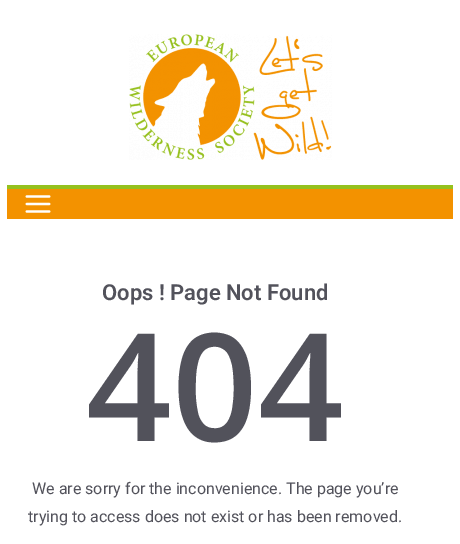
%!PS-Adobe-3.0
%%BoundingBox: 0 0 460 544
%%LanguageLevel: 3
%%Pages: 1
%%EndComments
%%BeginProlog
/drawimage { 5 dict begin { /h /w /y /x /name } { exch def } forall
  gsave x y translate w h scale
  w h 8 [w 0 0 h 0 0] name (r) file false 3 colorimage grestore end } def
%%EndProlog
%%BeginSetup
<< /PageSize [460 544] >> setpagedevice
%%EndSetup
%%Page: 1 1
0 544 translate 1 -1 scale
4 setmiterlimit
1 setgray
0 0 460 544 rectfill
(images/1.raw) 129 34 203 126 drawimage
0.953 0.573 0 setrgbcolor
7 189 446 30 rectfill
0.584 0.757 0.118 setrgbcolor
7 185 446 4 rectfill
(images/2.raw) 25 195 26 18 drawimage
/Roboto-SemiBold [22 0 0 -22 0 0] selectfont
0.322 0.322 0.357 setrgbcolor
102 300 moveto (Oops ! Page Not Found) show
/OpenSans-SemiBold [150 0 0 -150 0 0] selectfont
86 441 moveto (404) show
/Roboto-Regular [16 0 0 -16 0 0] selectfont
32 494 moveto (We are sorry for the inconvenience. The page you’re) show
28 522 moveto (trying to access does not exist or has been removed.) show
showpage
%%EOF
